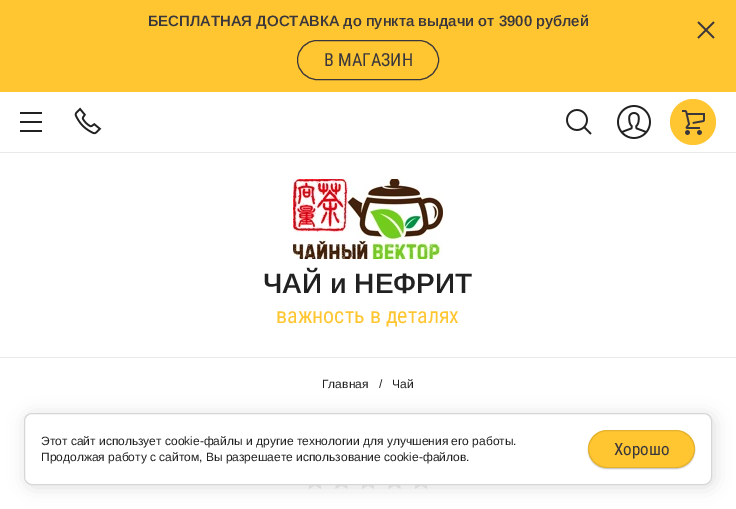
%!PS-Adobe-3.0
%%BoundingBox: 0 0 736 509
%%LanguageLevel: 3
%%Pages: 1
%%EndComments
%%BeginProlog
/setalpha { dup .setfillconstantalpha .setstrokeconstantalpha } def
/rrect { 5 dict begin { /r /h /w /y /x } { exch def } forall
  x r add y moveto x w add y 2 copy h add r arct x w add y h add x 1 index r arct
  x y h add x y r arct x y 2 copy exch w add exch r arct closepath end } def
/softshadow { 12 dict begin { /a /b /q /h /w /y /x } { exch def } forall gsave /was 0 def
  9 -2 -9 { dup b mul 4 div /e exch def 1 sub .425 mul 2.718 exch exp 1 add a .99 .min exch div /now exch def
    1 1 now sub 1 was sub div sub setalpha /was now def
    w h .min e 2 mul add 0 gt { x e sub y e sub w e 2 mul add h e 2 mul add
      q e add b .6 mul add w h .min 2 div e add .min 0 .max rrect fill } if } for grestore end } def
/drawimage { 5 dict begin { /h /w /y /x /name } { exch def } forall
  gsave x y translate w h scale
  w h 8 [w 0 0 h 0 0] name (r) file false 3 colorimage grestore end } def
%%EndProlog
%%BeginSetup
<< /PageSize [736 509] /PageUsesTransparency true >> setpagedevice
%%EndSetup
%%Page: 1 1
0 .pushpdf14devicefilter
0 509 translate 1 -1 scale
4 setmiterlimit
1 setgray
0 0 736 509 rectfill
1 0.776 0.196 setrgbcolor
0 0 736 92 rectfill
(images/1.raw) 697 21 18 18 drawimage
0.224 0.212 0.235 setrgbcolor
297.5 40.5 141 39 19.5 rrect stroke
0.914 setgray
0 152 736 1 rectfill
(images/2.raw) 20 112 22 20 drawimage
(images/3.raw) 74 107 28 28 drawimage
(images/4.raw) 566 109 26 26 drawimage
(images/5.raw) 617 105 34 34 drawimage
1 0.776 0.196 setrgbcolor
newpath 693 122 23 0 360 arc closepath fill
(images/6.raw) 682 110 23 25 drawimage
(images/7.raw) 293 179 150 80 drawimage
0.914 setgray
0 357 736 1 rectfill
(images/8.raw) 308 485 120 4 drawimage
0 setgray
26 415 688 72 8 9 0.14 softshadow
1 setgray
24.5 413.5 687 71 7.5 rrect gsave fill grestore
0.839 setgray
stroke
0 setgray
588 431 107 38 19 0.5 0.2 softshadow
1 0.776 0.196 setrgbcolor
588 430 107 38 19 rrect fill
0.1 setalpha
0 setgray
588.5 430.5 106 37 18.5 rrect stroke
/Arimo-SemiBold [15 0 0 -15 0 0] selectfont
1 setalpha
0.224 0.212 0.235 setrgbcolor
148 26 moveto (БЕСПЛАТНАЯ ДОСТАВКА до пункта выдачи от 3900 рублей) show
/RobotoCondensed-Regular [18 0 0 -18 0 0] selectfont
324 66 moveto (В МАГАЗИН) show
/Arimo-SemiBold [28 0 0 -28 0 0] selectfont
0.129 setgray
263 293 moveto (ЧАЙ и НЕФРИТ) show
/RobotoCondensed-Regular [22 0 0 -22 0 0] selectfont
1 0.776 0.196 setrgbcolor
276 323 moveto (важность в деталях) show
/Arimo-Regular [12 0 0 -12 0 0] selectfont
0.129 setgray
322 388 moveto (Главная) show
379 388 moveto (/) show
392 388 moveto (Чай) show
41 445 moveto (Этот сайт использует cookie-файлы и другие технологии для улучшения его работы.) show
41 461 moveto (Продолжая работу с сайтом, Вы разрешаете использование cookie-файлов.) show
/RobotoCondensed-Regular [17 0 0 -17 0 0] selectfont
0.224 0.212 0.235 setrgbcolor
614 455 moveto (Хорошо) show
.poppdf14devicefilter showpage
%%EOF
